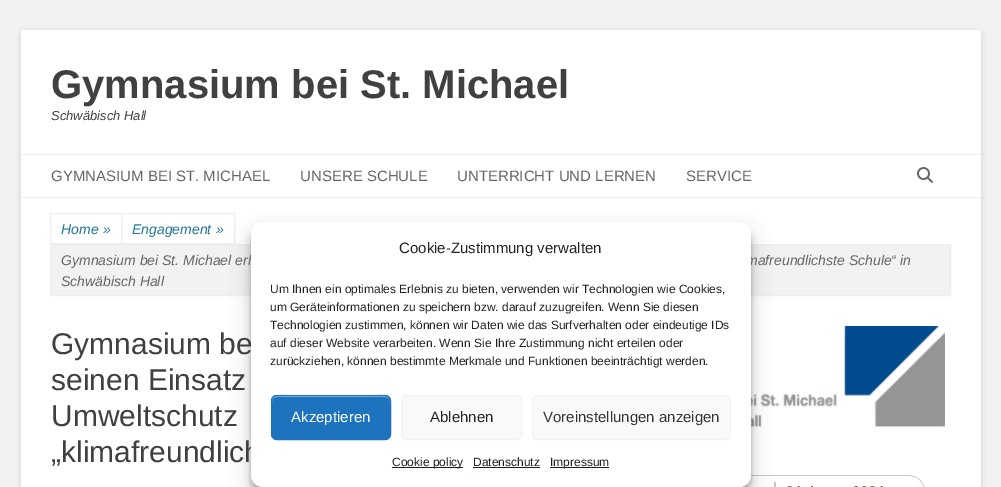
%!PS-Adobe-3.0
%%BoundingBox: 0 0 1001 487
%%LanguageLevel: 3
%%Pages: 1
%%EndComments
%%BeginProlog
/setalpha { dup .setfillconstantalpha .setstrokeconstantalpha } def
/rrect { 5 dict begin { /r /h /w /y /x } { exch def } forall
  x r add y moveto x w add y 2 copy h add r arct x w add y h add x 1 index r arct
  x y h add x y r arct x y 2 copy exch w add exch r arct closepath end } def
/softshadow { 12 dict begin { /a /b /q /h /w /y /x } { exch def } forall gsave /was 0 def
  9 -2 -9 { dup b mul 4 div /e exch def 1 sub .425 mul 2.718 exch exp 1 add a .99 .min exch div /now exch def
    1 1 now sub 1 was sub div sub setalpha /was now def
    w h .min e 2 mul add 0 gt { x e sub y e sub w e 2 mul add h e 2 mul add
      q e add b .6 mul add w h .min 2 div e add .min 0 .max rrect fill } if } for grestore end } def
/drawimage { 5 dict begin { /h /w /y /x /name } { exch def } forall
  gsave x y translate w h scale
  w h 8 [w 0 0 h 0 0] name (r) file false 3 colorimage grestore end } def
%%EndProlog
%%BeginSetup
<< /PageSize [1001 487] /PageUsesTransparency true >> setpagedevice
%%EndSetup
%%Page: 1 1
0 .pushpdf14devicefilter
0 487 translate 1 -1 scale
4 setmiterlimit
0.949 setgray
0 0 1001 487 rectfill
0.392 setgray
21 32 960 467 3 3 0.3 softshadow
1 setgray
21 30 960 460 3 rrect fill
0.933 setgray
21 154 960 1 rectfill
21 197 960 1 rectfill
(images/1.raw) 917 167 16 16 drawimage
50.5 213.5 71 30 rectstroke
121.5 213.5 113 30 rectstroke
0.949 setgray
newpath 50.5 244.5 moveto 950.5 244.5 lineto 950.5 295.5 lineto 50.5 295.5 lineto closepath gsave fill grestore
0.933 setgray
stroke
(images/2.raw) 751 326 194 102 drawimage
(images/3.raw) 739 475 186 12 drawimage
0 setgray
251 228 500 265 12 3 0.23 softshadow
251 232 500 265 12 10 0.19 softshadow
/LiberationSans-Bold [40 0 0 -40 0 0] selectfont
0.251 setgray
51 98 moveto (Gymnasium bei St. Michael) show
/LiberationSans-Italic [13 0 0 -13 0 0] selectfont
51 120 moveto (Schwäbisch Hall) show
/LiberationSans-Regular [15 0 0 -15 0 0] selectfont
0.4 setgray
51 181 moveto (GYMNASIUM BEI ST. MICHAEL) show
300 181 moveto (UNSERE SCHULE) show
457 181 moveto (UNTERRICHT UND LERNEN) show
686 181 moveto (SERVICE) show
/LiberationSans-Italic [14 0 0 -14 0 0] selectfont
0.129 0.459 0.608 setrgbcolor
61 234 moveto (Home) show
103 234 moveto (») show
132 234 moveto (Engagement) show
216 234 moveto (») show
0.4 setgray
61 265 moveto (Gymnasium bei St. Michael erh) show
746 265 moveto (mafreundlichste Schule“ in) show
61 286 moveto (Schwäbisch Hall) show
/LiberationSans-Regular [30 0 0 -30 0 0] selectfont
0.251 setgray
51 354 moveto (Gymnasium be) show
51 390 moveto (seinen Einsatz) show
51 426 moveto (Umweltschutz) show
51 462 moveto („klimafreundlich) show
1 setgray
251 222 500 265 12 rrect fill
/LiberationSans-Regular [15 0 0 -15 0 0] selectfont
0.133 setgray
399 253 moveto (Cookie-Zustimmung verwalten) show
/LiberationSans-Regular [12 0 0 -12 0 0] selectfont
270 293 moveto (Um Ihnen ein optimales Erlebnis zu bieten, verwenden wir Technologien wie Cookies,) show
270 311 moveto (um Geräteinformationen zu speichern bzw. darauf zuzugreifen. Wenn Sie diesen) show
270 329 moveto (Technologien zustimmen, können wir Daten wie das Surfverhalten oder eindeutige IDs) show
270 347 moveto (auf dieser Website verarbeiten. Wenn Sie Ihre Zustimmung nicht erteilen oder) show
270 365 moveto (zurückziehen, können bestimmte Merkmale und Funktionen beeinträchtigt werden.) show
0.118 0.451 0.745 setrgbcolor
271 395 120 45 6 rrect fill
0.561 0.725 0.875 setrgbcolor
newpath 277 397 moveto 385 397 lineto 388 397 390 399 390 402 curveto 390 391 372 396 367 396 curveto 295 396 lineto 290 396 272 391 272 402 curveto 272 399 274 397 277 397 curveto closepath fill
0.118 0.451 0.745 setrgbcolor
271.5 395.5 119 44 5.5 rrect stroke
/LiberationSans-Regular [15 0 0 -15 0 0] selectfont
1 setgray
291 422 moveto (Akzeptieren) show
0.976 setgray
401 395 121 45 6 rrect fill
0.988 setgray
newpath 407 397 moveto 516 397 lineto 519 397 521 399 521 402 curveto 521 391 502 396 498 396 curveto 425 396 lineto 421 396 402 391 402 402 curveto 402 399 404 397 407 397 curveto closepath fill
0.949 setgray
401.5 395.5 120 44 5.5 rrect stroke
0.133 setgray
430 422 moveto (Ablehnen) show
0.976 setgray
532 395 199 45 6 rrect fill
0.988 setgray
newpath 538 397 moveto 725 397 lineto 728 397 730 399 730 402 curveto 730 401 lineto 730 398 728 396 725 396 curveto 538 396 lineto 535 396 533 398 533 401 curveto 533 402 lineto 533 399 535 397 538 397 curveto closepath fill
0.949 setgray
532.5 395.5 198 44 5.5 rrect stroke
0.2 setgray
543 422 moveto (Voreinstellungen anzeigen) show
0.098 0.118 0.137 setrgbcolor
392 467 71 1 rectfill
/LiberationSans-Regular [12 0 0 -12 0 0] selectfont
392 466 moveto (Cookie policy) show
473 466 moveto (Datenschutz) show
473 467 67 1 rectfill
550 467 59 1 rectfill
550 466 moveto (Impressum) show
.poppdf14devicefilter showpage
%%EOF
